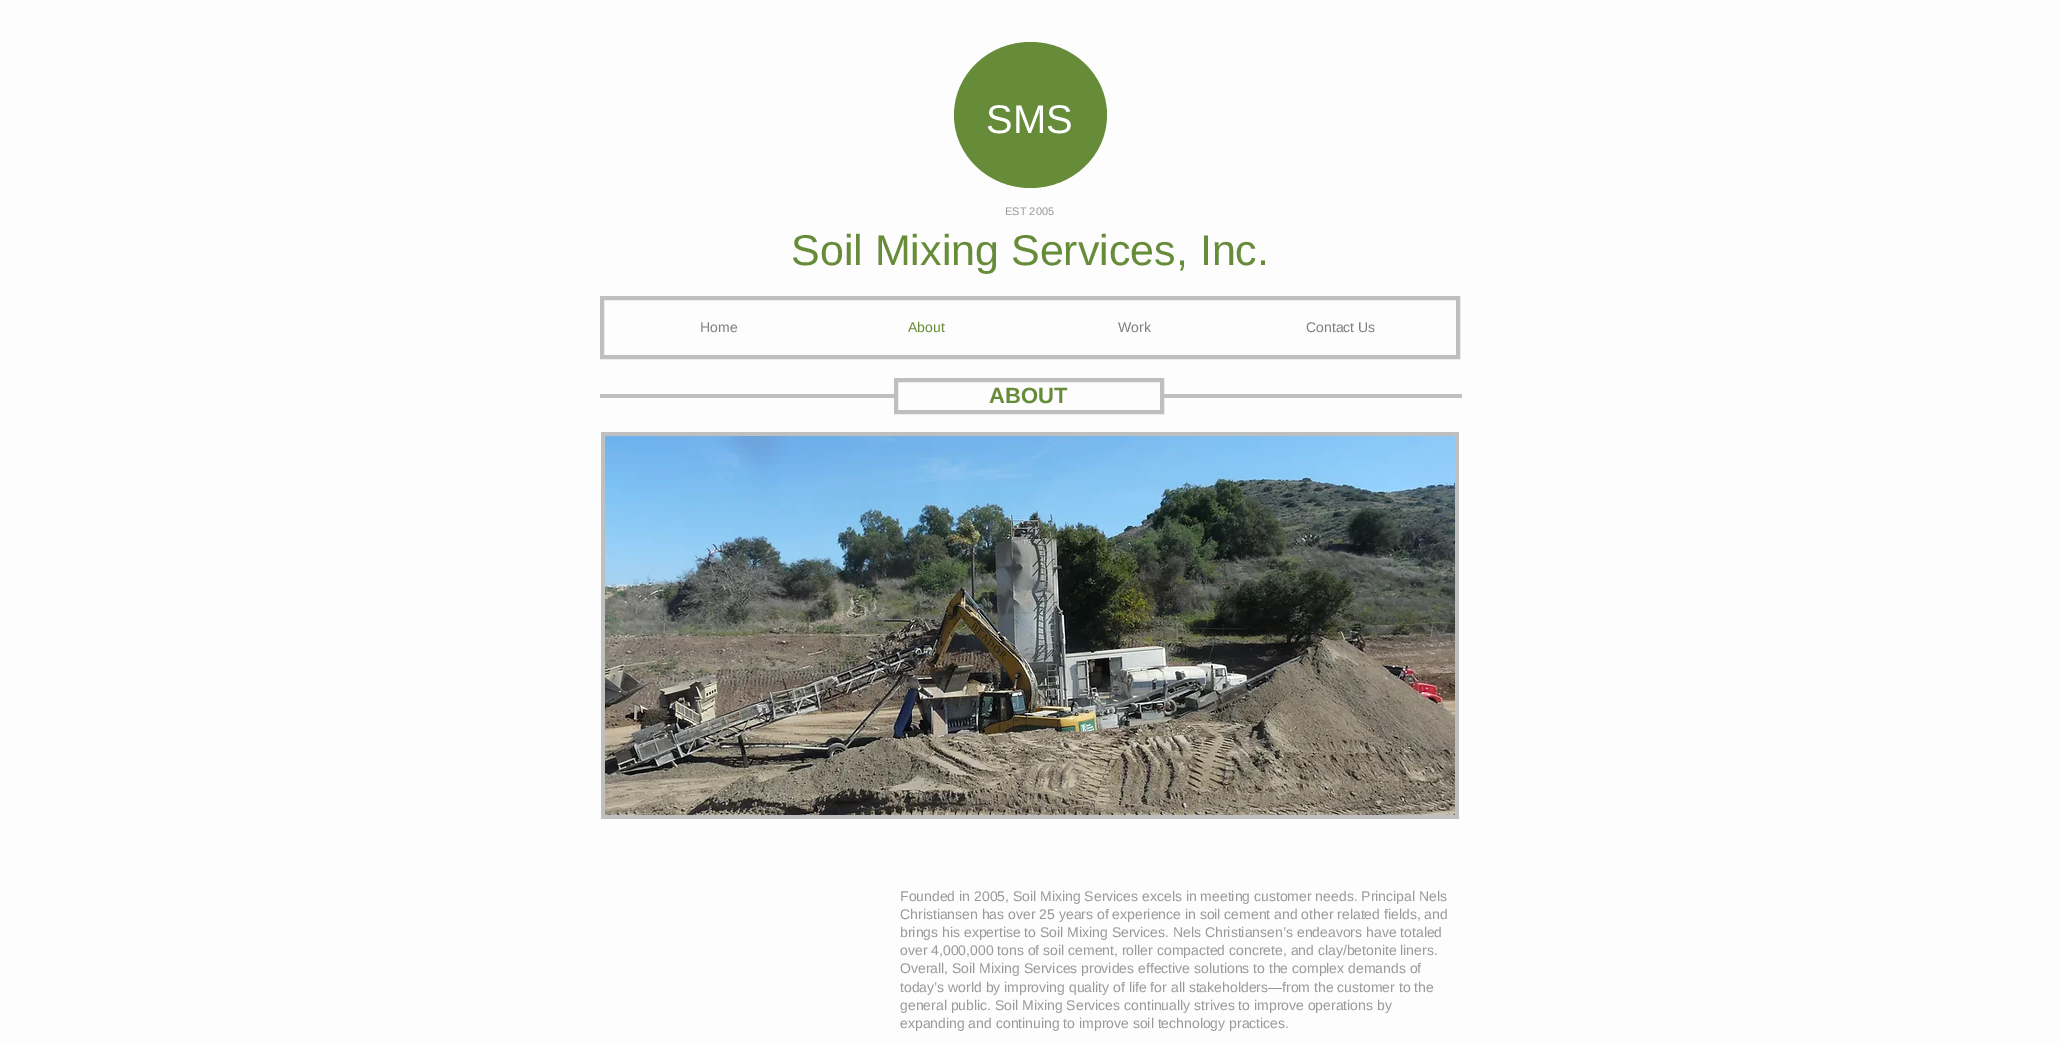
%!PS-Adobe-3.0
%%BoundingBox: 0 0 2059 1043
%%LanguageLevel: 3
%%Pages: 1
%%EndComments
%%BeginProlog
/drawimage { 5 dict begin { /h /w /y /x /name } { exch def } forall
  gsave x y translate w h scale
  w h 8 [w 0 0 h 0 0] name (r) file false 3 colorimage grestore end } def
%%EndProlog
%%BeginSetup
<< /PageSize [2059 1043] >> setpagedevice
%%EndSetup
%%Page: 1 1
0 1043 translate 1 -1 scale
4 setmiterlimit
0.996 0.992 0.992 setrgbcolor
0 0 2059 1043 rectfill
0.404 0.549 0.224 setrgbcolor
newpath 1030.5 42 moveto 1072.5 42 1107 74.5 1107 115 curveto 1107 155.5 1072.5 188 1030.5 188 curveto 988.5 188 954 155.5 954 115 curveto 954 74.5 988.5 42 1030.5 42 curveto closepath fill
0.749 setgray
4 setlinewidth
602 298 856 59 rectstroke
896 380 266 32 rectstroke
600 394 297 4 rectfill
1161 394 301 4 rectfill
601 432 858 387 rectfill
(images/1.raw) 605 436 850 379 drawimage
/LiberationSans-Regular [40 0 0 -40 0 0] selectfont
1 setgray
986 133 moveto (SMS) show
/LiberationSans-Regular [11 0 0 -11 0 0] selectfont
0.6 setgray
1005 215 moveto (EST 2005) show
/LiberationSans-Regular [43 0 0 -43 0 0] selectfont
0.404 0.549 0.224 setrgbcolor
791 265 moveto (Soil Mixing Services, Inc.) show
/LiberationSans-Regular [14 0 0 -14 0 0] selectfont
0.498 setgray
700 332 moveto (Home) show
0.404 0.549 0.224 setrgbcolor
908 332 moveto (About) show
0.498 setgray
1118 332 moveto (Work) show
1306 332 moveto (Contact Us) show
/LiberationSans-Bold [22 0 0 -22 0 0] selectfont
0.404 0.549 0.224 setrgbcolor
989 403 moveto (ABOUT) show
/LiberationSans-Regular [14 0 0 -14 0 0] selectfont
0.6 setgray
900 901 moveto (Founded in 2005, Soil Mixing Services excels in meeting customer needs. Principal Nels) show
900 919 moveto (Christiansen has over 25 years of experience in soil cement and other related fields, and) show
900 937 moveto (brings his expertise to Soil Mixing Services. Nels Christiansen’s endeavors have totaled) show
900 955 moveto (over 4,000,000 tons of soil cement, roller compacted concrete, and clay/betonite liners.) show
900 973 moveto (Overall, Soil Mixing Services provides effective solutions to the complex demands of) show
900 992 moveto (today’s world by improving quality of life for all stakeholders—from the customer to the) show
900 1010 moveto (general public. Soil Mixing Services continually strives to improve operations by) show
900 1028 moveto (expanding and continuing to improve soil technology practices.) show
showpage
%%EOF
